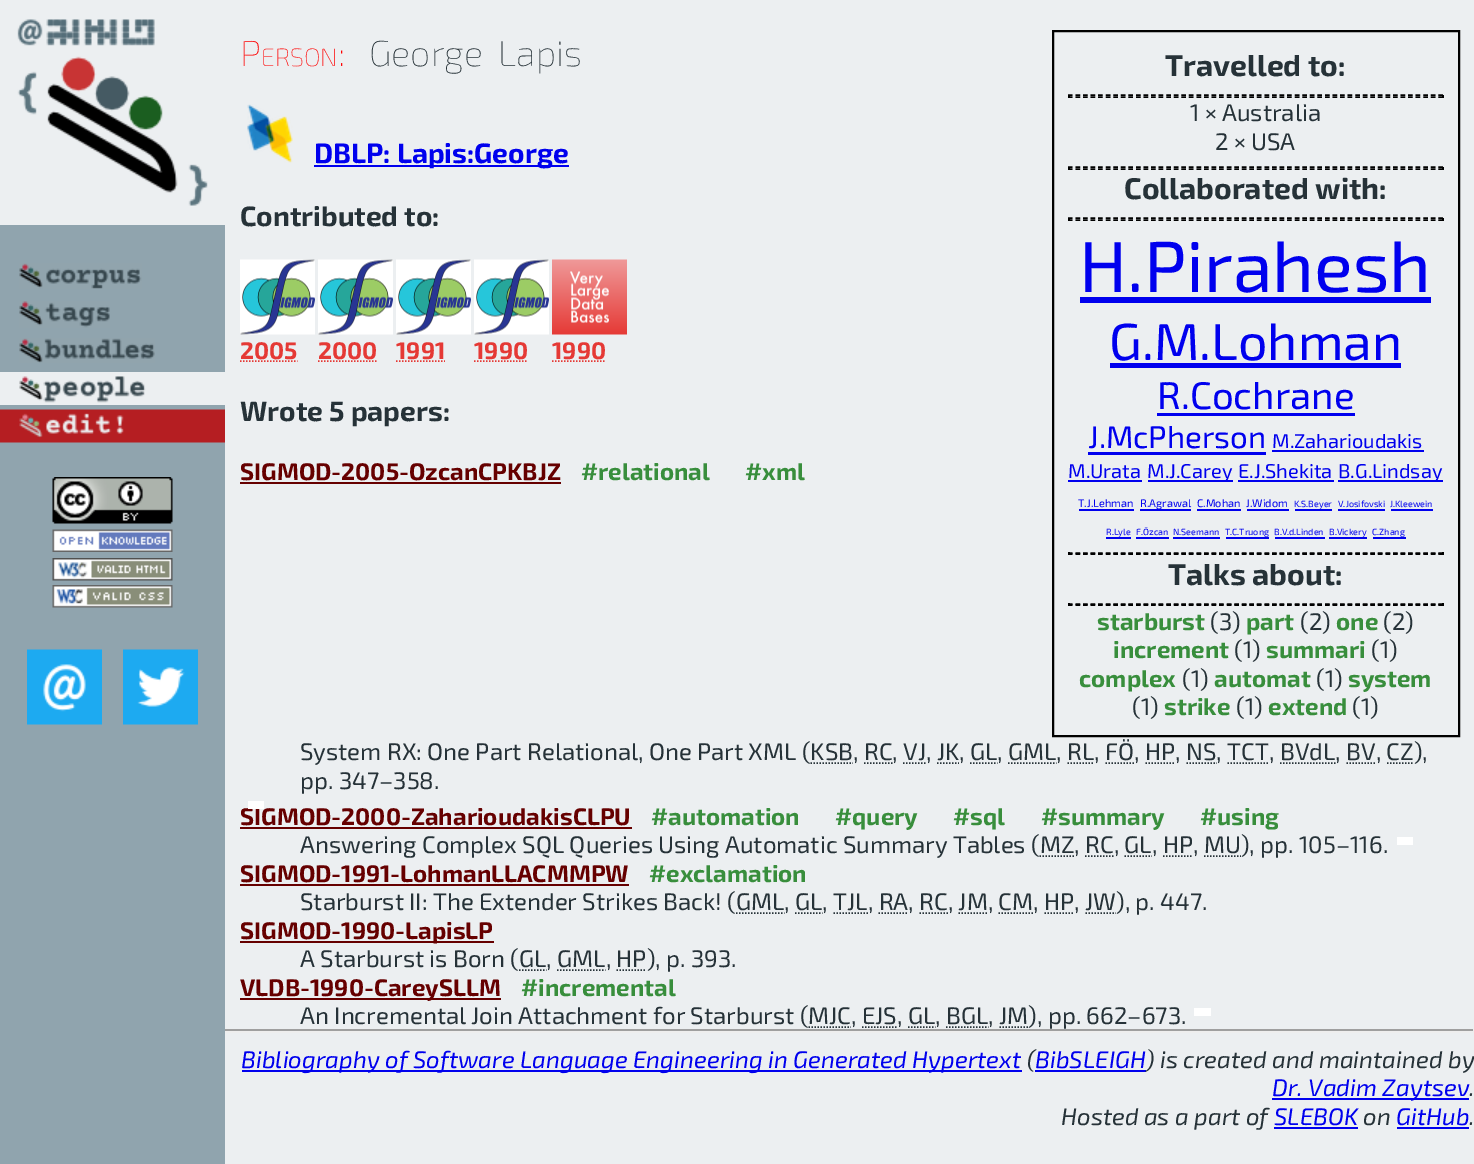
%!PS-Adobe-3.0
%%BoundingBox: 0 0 1474 1164
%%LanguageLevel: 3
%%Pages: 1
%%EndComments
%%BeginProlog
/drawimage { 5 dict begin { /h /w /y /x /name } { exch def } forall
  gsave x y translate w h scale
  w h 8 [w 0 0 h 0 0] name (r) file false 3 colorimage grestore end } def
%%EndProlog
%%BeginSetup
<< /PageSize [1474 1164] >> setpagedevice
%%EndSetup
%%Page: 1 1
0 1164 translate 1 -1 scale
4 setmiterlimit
0.925 0.937 0.945 setrgbcolor
0 0 1474 1164 rectfill
0.565 0.643 0.682 setrgbcolor
0 225 225 939 rectfill
(images/1.raw) 0 0 225 225 drawimage
(images/2.raw) 19 263 123 26 drawimage
(images/3.raw) 19 301 91 27 drawimage
(images/4.raw) 19 338 136 25 drawimage
(images/5.raw) 0 372 225 33 drawimage
(images/6.raw) 0 409 225 34 drawimage
(images/7.raw) 52 477 121 47 drawimage
(images/8.raw) 52 529 121 23 drawimage
(images/9.raw) 52 558 121 23 drawimage
(images/10.raw) 52 585 121 23 drawimage
(images/11.raw) 27 649 75 76 drawimage
(images/12.raw) 123 649 75 76 drawimage
0 setgray
2 setlinewidth
1053 31 406 705 rectstroke
1.5 setlinewidth
[4.5 3.06] 0 setdash
newpath 1068 95 moveto 1443 95 lineto stroke
1442 95 2 3 rectfill
newpath 1068 97 moveto 1443 97 lineto stroke
1068 95 2 3 rectfill
newpath 1068 167 moveto 1443 167 lineto stroke
1442 167 2 3 rectfill
newpath 1068 169 moveto 1443 169 lineto stroke
1068 167 2 3 rectfill
newpath 1068 218 moveto 1443 218 lineto stroke
1442 218 2 3 rectfill
newpath 1068 220 moveto 1443 220 lineto stroke
1068 218 2 3 rectfill
0 0 0.933 setrgbcolor
1080 297 351 6 rectfill
1110 363 291 5 rectfill
1157 413 198 3 rectfill
1088 452 178 3 rectfill
1272 450 152 2 rectfill
1068 480 74 2 rectfill
1148 480 85 2 rectfill
1238 480 96 2 rectfill
1338 480 105 2 rectfill
1079 509 55 2 rectfill
1140 509 51 2 rectfill
1197 509 44 2 rectfill
1247 509 42 2 rectfill
1295 509 37 2 rectfill
1338 509 47 2 rectfill
1391 509 42 2 rectfill
1106 537 25 2 rectfill
1136 537 33 2 rectfill
1173 537 47 2 rectfill
1226 537 43 2 rectfill
1275 537 50 2 rectfill
1329 537 38 2 rectfill
1373 537 33 2 rectfill
0 setgray
newpath 1068 553 moveto 1443 553 lineto stroke
1442 552 2 3 rectfill
newpath 1068 554 moveto 1443 554 lineto stroke
1068 552 2 3 rectfill
newpath 1068 604 moveto 1443 604 lineto stroke
1442 603 2 3 rectfill
newpath 1068 605 moveto 1443 605 lineto stroke
1068 603 2 3 rectfill
(images/13.raw) 247 104 46 59 drawimage
0 0 0.933 setrgbcolor
314 165 255 2 rectfill
(images/14.raw) 240 259 75 76 drawimage
0.898 0.224 0.208 setrgbcolor
[1.5 1.5] 0 setdash
newpath 240 361 moveto 297.5 361 lineto stroke
(images/14.raw) 318 259 75 76 drawimage
newpath 318 361 moveto 377.5 361 lineto stroke
(images/14.raw) 396 259 75 76 drawimage
newpath 396 361 moveto 445 361 lineto stroke
(images/14.raw) 474 259 75 76 drawimage
newpath 474 361 moveto 528 361 lineto stroke
(images/15.raw) 552 259 75 76 drawimage
newpath 552 361 moveto 606 361 lineto stroke
0.4 0 0 setrgbcolor
240 482 321 2 rectfill
0.149 0.196 0.22 setrgbcolor
newpath 810.5 763 moveto 853 763 lineto stroke
newpath 864 763 moveto 892.5 763 lineto 903 763 moveto 926 763 lineto stroke
newpath 937 763 moveto 959 763 lineto 970 763 moveto 997.5 763 lineto stroke
newpath 1008 763 moveto 1056.5 763 lineto stroke
newpath 1067.5 763 moveto 1094.5 763 lineto stroke
newpath 1105.5 763 moveto 1134.5 763 lineto stroke
newpath 1145.5 763 moveto 1175.5 763 lineto stroke
newpath 1186.5 763 moveto 1217 763 lineto stroke
newpath 1227.5 763 moveto 1269 763 lineto stroke
newpath 1280 763 moveto 1335.5 763 lineto stroke
newpath 1346.5 763 moveto 1376 763 lineto stroke
newpath 1387 763 moveto 1414 763 lineto stroke
0.4 0 0 setrgbcolor
240 827 392 2 rectfill
0.149 0.196 0.22 setrgbcolor
newpath 1039.5 856 moveto 1074.5 856 lineto stroke
newpath 1085 856 moveto 1113.5 856 lineto stroke
newpath 1124.5 856 moveto 1152 856 lineto stroke
newpath 1163 856 moveto 1193 856 lineto stroke
newpath 1204 856 moveto 1241 856 lineto stroke
1 setgray
1397 837 16 8 rectfill
0.4 0 0 setrgbcolor
240 884 389 2 rectfill
0.149 0.196 0.22 setrgbcolor
newpath 736 913 moveto 784.5 913 lineto stroke
newpath 795 913 moveto 822.5 913 lineto stroke
newpath 833.5 913 moveto 868 913 lineto stroke
newpath 878.5 913 moveto 908.5 913 lineto stroke
newpath 919.5 913 moveto 948 913 lineto stroke
newpath 958.5 913 moveto 988 913 lineto stroke
newpath 998.5 913 moveto 1033.5 913 lineto stroke
newpath 1044.5 913 moveto 1074.5 913 lineto stroke
newpath 1085.5 913 moveto 1116 913 lineto stroke
0.4 0 0 setrgbcolor
240 941 254 2 rectfill
0.149 0.196 0.22 setrgbcolor
newpath 519 970 moveto 546.5 970 lineto stroke
newpath 557 970 moveto 605.5 970 lineto stroke
newpath 616.5 970 moveto 646.5 970 lineto stroke
0.4 0 0 setrgbcolor
240 998 261 2 rectfill
0.149 0.196 0.22 setrgbcolor
newpath 808.5 1027 moveto 851 1027 lineto stroke
newpath 862 1027 moveto 897 1027 lineto stroke
newpath 908 1027 moveto 935.5 1027 lineto stroke
newpath 946 1027 moveto 988.5 1027 lineto stroke
newpath 999.5 1027 moveto 1028.5 1027 lineto stroke
1 setgray
1194 1008 17 8 rectfill
0.624 setgray
225 1029 1249 2 rectfill
0.933 setgray
1473 1029 1 3 rectfill
225 1031 1249 2 rectfill
0 0 0.933 setrgbcolor
242 1070 780 2 rectfill
1272 1098 197 2 rectfill
1274 1127 84 2 rectfill
1397 1127 72 2 rectfill
/Exo2-Thin [36 0 0 -36 0 0] selectfont
1 0 0 setrgbcolor
240 66 moveto (P) show
/Exo2-Thin [25 0 0 -25 0 0] selectfont
261 66 moveto (ERSON) show
/Exo2-Thin [36 0 0 -36 0 0] selectfont
338 66 moveto (:) show
0.149 0.196 0.22 setrgbcolor
369 66 moveto 7 0 32 (George Lapis) widthshow
/Exo2-Bold [30 0 0 -30 0 0] selectfont
1165 76 moveto (Travelled to:) show
/Exo2-Regular [24 0 0 -24 0 0] selectfont
1190 121 moveto (1 × Australia) show
1215 150 moveto (2 × USA) show
/Exo2-Bold [30 0 0 -30 0 0] selectfont
1124 199 moveto (Collaborated with:) show
/Exo2-Regular [72 0 0 -72 0 0] selectfont
0 0 0.933 setrgbcolor
1079 292 moveto (H.Pirahesh) show
/Exo2-Regular [52 0 0 -52 0 0] selectfont
1109 360 moveto (G.M.Lohman) show
/Exo2-Regular [38.5 0 0 -38.5 0 0] selectfont
1157 409 moveto (R.Cochrane) show
/Exo2-Regular [31.25 0 0 -31.25 0 0] selectfont
1088 448 moveto (J.McPherson) show
/Exo2-Regular [20 0 0 -20 0 0] selectfont
1272 448 moveto (M.Zaharioudakis) show
1068 478 moveto (M.Urata) show
1147 478 moveto (M.J.Carey) show
1238 478 moveto (E.J.Shekita) show
1338 478 moveto (B.G.Lindsay) show
/Exo2-Regular [11 0 0 -11 0 0] selectfont
1078 507 moveto (T.J.Lehman) show
1140 507 moveto (R.Agrawal) show
1197 507 moveto (C.Mohan) show
1246 507 moveto (J.Widom) show
/Exo2-Regular [9 0 0 -9 0 0] selectfont
1294 507 moveto (K.S.Beyer) show
1338 507 moveto (V.Josifovski) show
1390 507 moveto (J.Kleewein) show
1106 535 moveto (R.Lyle) show
1136 535 moveto (F.Özcan) show
1173 535 moveto (N.Seemann) show
1225 535 moveto (T.C.Truong) show
1274 535 moveto (B.V.d.Linden) show
1329 535 moveto (B.Vickery) show
1372 535 moveto (C.Zhang) show
/Exo2-Bold [30 0 0 -30 0 0] selectfont
0.149 0.196 0.22 setrgbcolor
1168 585 moveto (Talks about:) show
/Exo2-Bold [24 0 0 -24 0 0] selectfont
0.22 0.557 0.235 setrgbcolor
1097 630 moveto (starburst) show
/Exo2-Regular [24 0 0 -24 0 0] selectfont
0.149 0.196 0.22 setrgbcolor
1210 630 moveto (\(3\)) show
/Exo2-Bold [24 0 0 -24 0 0] selectfont
0.22 0.557 0.235 setrgbcolor
1246 630 moveto (part) show
/Exo2-Regular [24 0 0 -24 0 0] selectfont
0.149 0.196 0.22 setrgbcolor
1300 630 moveto (\(2\)) show
/Exo2-Bold [24 0 0 -24 0 0] selectfont
0.22 0.557 0.235 setrgbcolor
1336 630 moveto (one) show
/Exo2-Regular [24 0 0 -24 0 0] selectfont
0.149 0.196 0.22 setrgbcolor
1383 630 moveto (\(2\)) show
/Exo2-Bold [24 0 0 -24 0 0] selectfont
0.22 0.557 0.235 setrgbcolor
1113 658 moveto (increment) show
/Exo2-Regular [24 0 0 -24 0 0] selectfont
0.149 0.196 0.22 setrgbcolor
1234 658 moveto (\(1\)) show
/Exo2-Bold [24 0 0 -24 0 0] selectfont
0.22 0.557 0.235 setrgbcolor
1266 658 moveto (summari) show
/Exo2-Regular [24 0 0 -24 0 0] selectfont
0.149 0.196 0.22 setrgbcolor
1371 658 moveto (\(1\)) show
/Exo2-Bold [24 0 0 -24 0 0] selectfont
0.22 0.557 0.235 setrgbcolor
1079 687 moveto (complex) show
/Exo2-Regular [24 0 0 -24 0 0] selectfont
0.149 0.196 0.22 setrgbcolor
1182 687 moveto (\(1\)) show
/Exo2-Bold [24 0 0 -24 0 0] selectfont
0.22 0.557 0.235 setrgbcolor
1214 687 moveto (automat) show
/Exo2-Regular [24 0 0 -24 0 0] selectfont
0.149 0.196 0.22 setrgbcolor
1316 687 moveto (\(1\)) show
/Exo2-Bold [24 0 0 -24 0 0] selectfont
0.22 0.557 0.235 setrgbcolor
1348 687 moveto (system) show
/Exo2-Regular [24 0 0 -24 0 0] selectfont
0.149 0.196 0.22 setrgbcolor
1132 715 moveto (\(1\)) show
/Exo2-Bold [24 0 0 -24 0 0] selectfont
0.22 0.557 0.235 setrgbcolor
1164 715 moveto (strike) show
/Exo2-Regular [24 0 0 -24 0 0] selectfont
0.149 0.196 0.22 setrgbcolor
1236 715 moveto (\(1\)) show
/Exo2-Bold [24 0 0 -24 0 0] selectfont
0.22 0.557 0.235 setrgbcolor
1268 715 moveto (extend) show
/Exo2-Regular [24 0 0 -24 0 0] selectfont
0.149 0.196 0.22 setrgbcolor
1352 715 moveto (\(1\)) show
/Exo2-Bold [28 0 0 -28 0 0] selectfont
0 0 0.933 setrgbcolor
314 163 moveto (DBLP: Lapis:George) show
0.149 0.196 0.22 setrgbcolor
240 226 moveto (Contributed to:) show
/Exo2-Bold [24 0 0 -24 0 0] selectfont
0.898 0.224 0.208 setrgbcolor
240 359 moveto (2005) show
318 359 moveto (2000) show
396 359 moveto (1991) show
474 359 moveto (1990) show
552 359 moveto (1990) show
/Exo2-Bold [28 0 0 -28 0 0] selectfont
0.149 0.196 0.22 setrgbcolor
240 421 moveto (Wrote 5 papers:) show
/Exo2-Bold [24 0 0 -24 0 0] selectfont
0.4 0 0 setrgbcolor
240 480 moveto (SIGMOD-2005-OzcanCPKBJZ) show
0.22 0.557 0.235 setrgbcolor
581 480 moveto (#relational) show
745 480 moveto (#xml) show
/Exo2-Regular [24 0 0 -24 0 0] selectfont
0.149 0.196 0.22 setrgbcolor
300 760 moveto (System RX: One Part Relational, One Part XML \(KSB, RC, VJ, JK, GL, GML, RL, FÖ, HP, NS, TCT, BVdL, BV, CZ\),) show
300 789 moveto (pp. 347–358.) show
/Exo2-Bold [24 0 0 -24 0 0] selectfont
0.4 0 0 setrgbcolor
240 825 moveto (SIGMOD-2000-ZaharioudakisCLPU) show
1 setgray
248 801 16 8 rectfill
0.22 0.557 0.235 setrgbcolor
651 825 moveto (#automation) show
835 825 moveto (#query) show
953 825 moveto (#sql) show
1041 825 moveto (#summary) show
1200 825 moveto (#using) show
/Exo2-Regular [24 0 0 -24 0 0] selectfont
0.149 0.196 0.22 setrgbcolor
300 853 moveto (Answering Complex SQL Queries Using Automatic Summary Tables \(MZ, RC, GL, HP, MU\), pp. 105–116.) show
/Exo2-Bold [24 0 0 -24 0 0] selectfont
0.4 0 0 setrgbcolor
240 882 moveto (SIGMOD-1991-LohmanLLACMMPW) show
0.22 0.557 0.235 setrgbcolor
649 882 moveto (#exclamation) show
/Exo2-Regular [24 0 0 -24 0 0] selectfont
0.149 0.196 0.22 setrgbcolor
300 910 moveto (Starburst II: The Extender Strikes Back! \(GML, GL, TJL, RA, RC, JM, CM, HP, JW\), p. 447.) show
/Exo2-Bold [24 0 0 -24 0 0] selectfont
0.4 0 0 setrgbcolor
240 939 moveto (SIGMOD-1990-LapisLP) show
/Exo2-Regular [24 0 0 -24 0 0] selectfont
0.149 0.196 0.22 setrgbcolor
300 967 moveto (A Starburst is Born \(GL, GML, HP\), p. 393.) show
/Exo2-Bold [24 0 0 -24 0 0] selectfont
0.4 0 0 setrgbcolor
240 996 moveto (VLDB-1990-CareySLLM) show
0.22 0.557 0.235 setrgbcolor
521 996 moveto (#incremental) show
/Exo2-Regular [24 0 0 -24 0 0] selectfont
0.149 0.196 0.22 setrgbcolor
300 1024 moveto (An Incremental Join Attachment for Starburst \(MJC, EJS, GL, BGL, JM\), pp. 662–673.) show
/Exo2-Italic [24 0 0 -24 0 0] selectfont
0 0 0.933 setrgbcolor
241 1068 moveto (Bibliography of Software Language Engineering in Generated Hypertext) show
0.149 0.196 0.22 setrgbcolor
1027 1068 moveto (\() show
0 0 0.933 setrgbcolor
1035 1068 moveto (BibSLEIGH) show
1035 1070 111 2 rectfill
0.149 0.196 0.22 setrgbcolor
1146 1068 moveto (\) is created and maintained by) show
0 0 0.933 setrgbcolor
1272 1096 moveto (Dr. Vadim Zaytsev) show
0.149 0.196 0.22 setrgbcolor
1469 1096 moveto (.) show
1061 1125 moveto (Hosted as a part of) show
0 0 0.933 setrgbcolor
1274 1125 moveto (SLEBOK) show
0.149 0.196 0.22 setrgbcolor
1363 1125 moveto (on) show
0 0 0.933 setrgbcolor
1396 1125 moveto (GitHub) show
0.149 0.196 0.22 setrgbcolor
1469 1125 moveto (.) show
showpage
%%EOF
